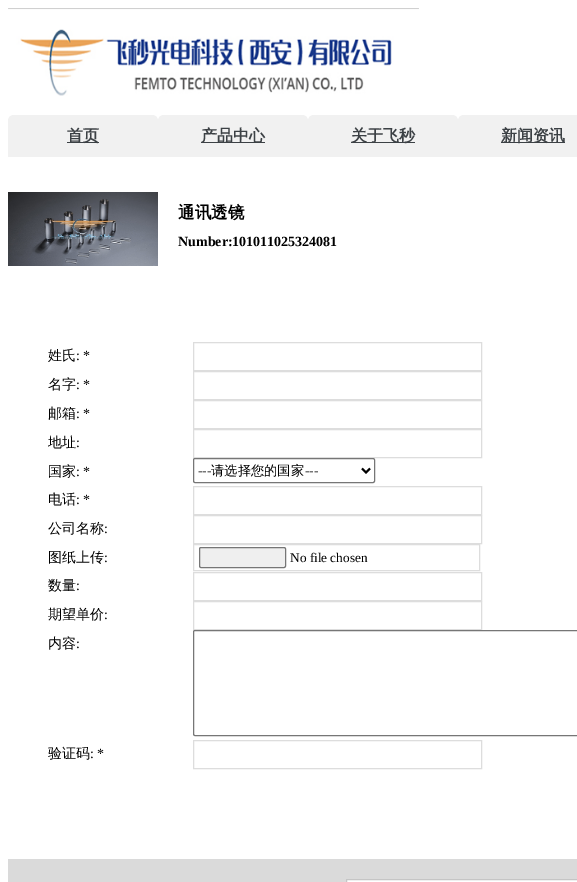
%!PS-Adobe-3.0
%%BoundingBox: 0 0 577 882
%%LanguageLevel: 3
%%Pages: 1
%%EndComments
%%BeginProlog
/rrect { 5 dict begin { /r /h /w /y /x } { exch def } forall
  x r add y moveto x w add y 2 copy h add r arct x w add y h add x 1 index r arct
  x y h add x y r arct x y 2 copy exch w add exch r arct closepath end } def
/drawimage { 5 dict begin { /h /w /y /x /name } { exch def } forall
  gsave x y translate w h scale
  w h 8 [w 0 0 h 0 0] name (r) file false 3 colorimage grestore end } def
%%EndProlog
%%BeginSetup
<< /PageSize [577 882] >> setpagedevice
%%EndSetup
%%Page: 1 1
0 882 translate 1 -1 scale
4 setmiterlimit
1 setgray
0 0 577 882 rectfill
(images/1.raw) 8 8 411 88 drawimage
0.945 setgray
newpath 14 115 moveto 152 115 lineto 155.5 115 158 117.5 158 121 curveto 158 157 lineto 8 157 lineto 8 121 lineto 8 117.5 10.5 115 14 115 curveto closepath fill
0.235 0.255 0.271 setrgbcolor
67 142 32 1 rectfill
0.945 setgray
newpath 164 115 moveto 302 115 lineto 305.5 115 308 117.5 308 121 curveto 308 157 lineto 158 157 lineto 158 121 lineto 158 117.5 160.5 115 164 115 curveto closepath fill
0.235 0.255 0.271 setrgbcolor
201 142 64 1 rectfill
0.945 setgray
newpath 314 115 moveto 452 115 lineto 455.5 115 458 117.5 458 121 curveto 458 157 lineto 308 157 lineto 308 121 lineto 308 117.5 310.5 115 314 115 curveto closepath fill
0.235 0.255 0.271 setrgbcolor
351 142 64 1 rectfill
0.945 setgray
newpath 464 115 moveto 577 115 lineto 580.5 115 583 117.5 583 121 curveto 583 157 lineto 458 157 lineto 458 121 lineto 458 117.5 460.5 115 464 115 curveto closepath fill
0.235 0.255 0.271 setrgbcolor
501 142 64 1 rectfill
(images/2.raw) 8 192 150 74 drawimage
0.867 setgray
193.5 342.5 288 28 rectstroke
193.5 371.5 288 28 rectstroke
193.5 400.5 288 28 rectstroke
193.5 429.5 288 28 rectstroke
0.463 setgray
193.5 458.5 181 24 1.5 rrect stroke
0 setgray
2 setlinewidth
newpath 362 468.5 moveto 366 472.5 lineto 370 468.5 lineto stroke
0.867 setgray
1 setlinewidth
193.5 486.5 288 28 rectstroke
193.5 515.5 288 28 rectstroke
193.5 544.5 286 26 rectstroke
0.937 setgray
199.5 547.5 86 20 1.5 rrect gsave fill grestore
0.463 setgray
stroke
0.867 setgray
193.5 572.5 288 28 rectstroke
193.5 601.5 288 28 rectstroke
0.463 setgray
193.5 630.5 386 105 1.5 rrect stroke
0.867 setgray
193.5 740.5 288 28 rectstroke
0.855 setgray
8 859 569 23 rectfill
1 setgray
newpath 346.5 879.5 moveto 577.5 879.5 lineto 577.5 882.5 lineto 346.5 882.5 lineto closepath gsave fill grestore
0.773 setgray
stroke
/WenQuanYiZenHei-Bold [16 0 0 -16 0 0] selectfont
0.235 0.255 0.271 setrgbcolor
67 141 moveto (首页) show
201 141 moveto (产品中心) show
351 141 moveto (关于飞秒) show
501 141 moveto (新闻资讯) show
/WenQuanYiZenHei-Bold [16.5 0 0 -16.5 0 0] selectfont
0 setgray
178 218 moveto (通讯透镜) show
/LiberationSerif-Bold [14 0 0 -14 0 0] selectfont
178 246 moveto (Number:101011025324081) show
/WenQuanYiZenHei-Medium [14 0 0 -14 0 0] selectfont
48 360 moveto (姓氏) show
/LiberationSerif-Regular [14 0 0 -14 0 0] selectfont
76 360 moveto (: *) show
/WenQuanYiZenHei-Medium [14 0 0 -14 0 0] selectfont
48 389 moveto (名字) show
/LiberationSerif-Regular [14 0 0 -14 0 0] selectfont
76 389 moveto (: *) show
/WenQuanYiZenHei-Medium [14 0 0 -14 0 0] selectfont
48 418 moveto (邮箱) show
/LiberationSerif-Regular [14 0 0 -14 0 0] selectfont
76 418 moveto (: *) show
/WenQuanYiZenHei-Medium [14 0 0 -14 0 0] selectfont
48 447 moveto (地址) show
/LiberationSerif-Regular [14 0 0 -14 0 0] selectfont
76 447 moveto (:) show
/WenQuanYiZenHei-Medium [14 0 0 -14 0 0] selectfont
48 476 moveto (国家) show
/LiberationSerif-Regular [14 0 0 -14 0 0] selectfont
76 476 moveto (: *) show
/LiberationSerif-Regular [13.25 0 0 -13.25 0 0] selectfont
198 475 moveto (---) show
/WenQuanYiZenHei-Medium [13.25 0 0 -13.25 0 0] selectfont
211 475 moveto (请选择您的国家) show
/LiberationSerif-Regular [13.25 0 0 -13.25 0 0] selectfont
305 475 moveto (---) show
/WenQuanYiZenHei-Medium [14 0 0 -14 0 0] selectfont
48 504 moveto (电话) show
/LiberationSerif-Regular [14 0 0 -14 0 0] selectfont
76 504 moveto (: *) show
/WenQuanYiZenHei-Medium [14 0 0 -14 0 0] selectfont
48 533 moveto (公司名称) show
/LiberationSerif-Regular [14 0 0 -14 0 0] selectfont
104 533 moveto (:) show
/WenQuanYiZenHei-Medium [14 0 0 -14 0 0] selectfont
48 562 moveto (图纸上传) show
/LiberationSerif-Regular [14 0 0 -14 0 0] selectfont
104 562 moveto (:) show
/LiberationSerif-Regular [13.25 0 0 -13.25 0 0] selectfont
290 562 moveto (No file chosen) show
/WenQuanYiZenHei-Medium [14 0 0 -14 0 0] selectfont
48 590 moveto (数量) show
/LiberationSerif-Regular [14 0 0 -14 0 0] selectfont
76 590 moveto (:) show
/WenQuanYiZenHei-Medium [14 0 0 -14 0 0] selectfont
48 619 moveto (期望单价) show
/LiberationSerif-Regular [14 0 0 -14 0 0] selectfont
104 619 moveto (:) show
/WenQuanYiZenHei-Medium [14 0 0 -14 0 0] selectfont
48 648 moveto (内容) show
/LiberationSerif-Regular [14 0 0 -14 0 0] selectfont
76 648 moveto (:) show
/WenQuanYiZenHei-Medium [14 0 0 -14 0 0] selectfont
48 758 moveto (验证码) show
/LiberationSerif-Regular [14 0 0 -14 0 0] selectfont
90 758 moveto (: *) show
showpage
%%EOF
